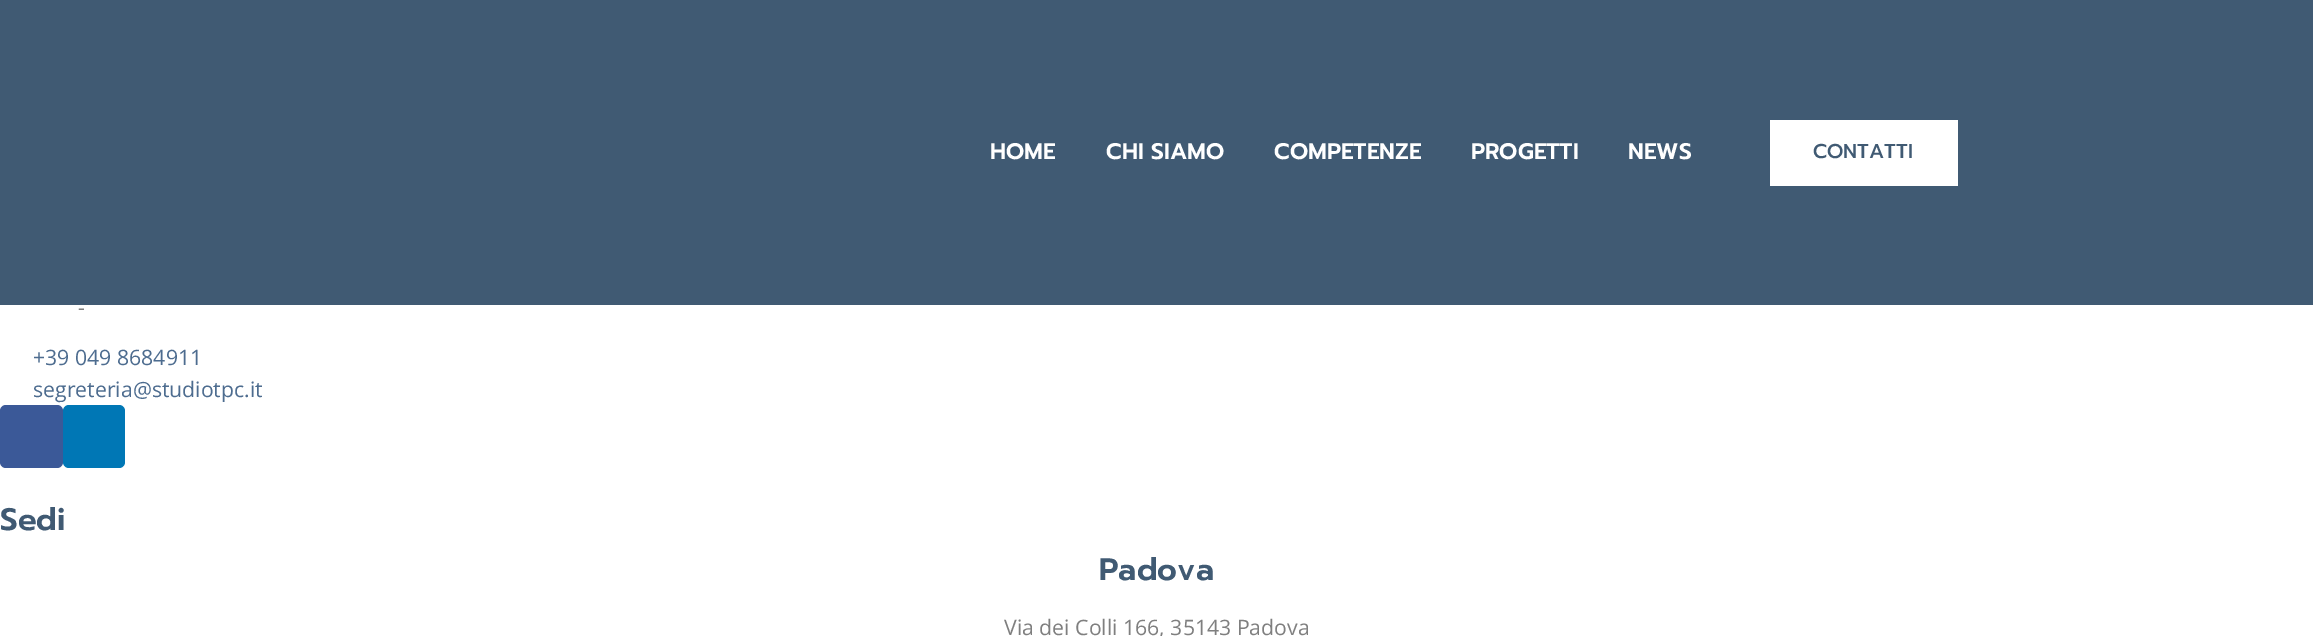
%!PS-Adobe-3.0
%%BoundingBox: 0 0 2313 636
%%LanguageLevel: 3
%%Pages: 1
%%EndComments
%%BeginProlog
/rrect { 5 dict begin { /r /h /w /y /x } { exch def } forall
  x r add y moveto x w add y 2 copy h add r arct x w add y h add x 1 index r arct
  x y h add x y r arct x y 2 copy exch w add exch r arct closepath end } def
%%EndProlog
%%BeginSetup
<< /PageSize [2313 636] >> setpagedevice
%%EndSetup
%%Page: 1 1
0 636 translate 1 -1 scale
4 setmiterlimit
1 setgray
0 0 2313 636 rectfill
0.251 0.353 0.451 setrgbcolor
0 0 2313 305 rectfill
1 setgray
1770 120 188 66 rectfill
0.231 0.349 0.596 setrgbcolor
0 405 63 63 6 rrect fill
0 0.467 0.71 setrgbcolor
63 405 62 63 6 rrect fill
/Prompt-SemiBold [22.5 0 0 -22.5 0 0] selectfont
1 setgray
990 159 moveto (HOME) show
1106 159 moveto (CHI SIAMO) show
1274 159 moveto (COMPETENZE) show
1471 159 moveto (PROGETTI) show
1628 159 moveto (NEWS) show
/Prompt-Medium [20 0 0 -20 0 0] selectfont
0.251 0.353 0.451 setrgbcolor
1813 158 moveto (CONTATTI) show
/OpenSans-Regular [21.25 0 0 -21.25 0 0] selectfont
0.498 setgray
78 315 moveto (-) show
0.302 0.424 0.561 setrgbcolor
33 365 moveto (+39 049 8684911) show
33 397 moveto (segreteria@studiotpc.it) show
/Prompt-SemiBold [31 0 0 -31 0 0] selectfont
0.251 0.353 0.451 setrgbcolor
0 530 moveto (Sedi) show
1099 580 moveto (Padova) show
/OpenSans-Regular [21.25 0 0 -21.25 0 0] selectfont
0.498 setgray
1004 635 moveto (Via dei Colli 166, 35143 Padova) show
showpage
%%EOF
